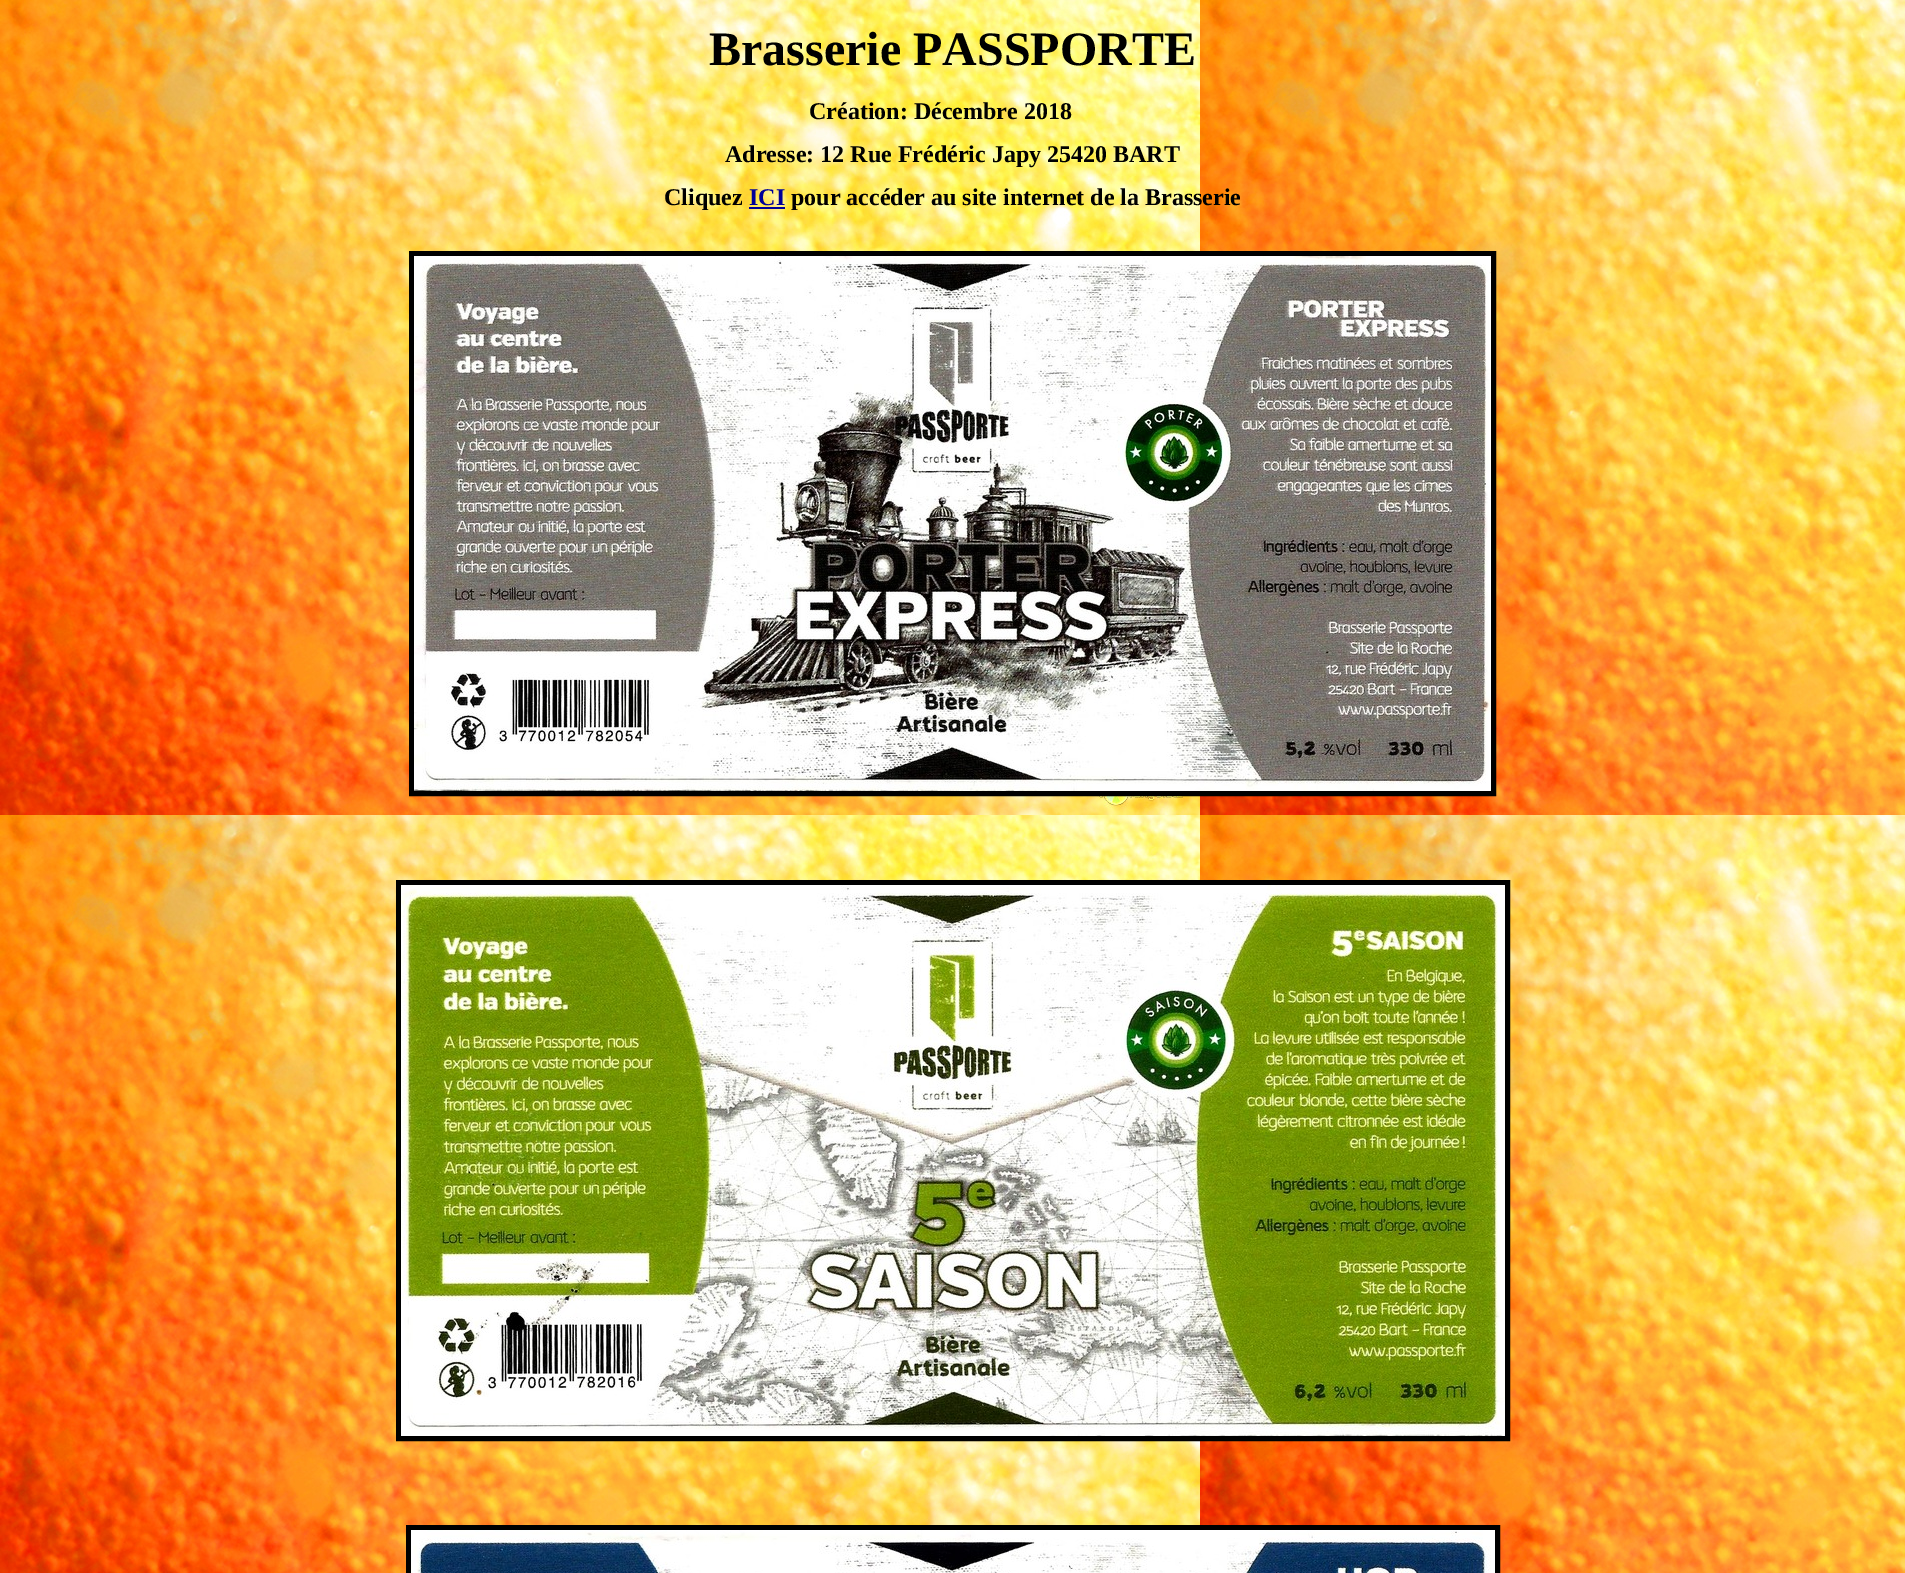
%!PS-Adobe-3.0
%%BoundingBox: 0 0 1905 1573
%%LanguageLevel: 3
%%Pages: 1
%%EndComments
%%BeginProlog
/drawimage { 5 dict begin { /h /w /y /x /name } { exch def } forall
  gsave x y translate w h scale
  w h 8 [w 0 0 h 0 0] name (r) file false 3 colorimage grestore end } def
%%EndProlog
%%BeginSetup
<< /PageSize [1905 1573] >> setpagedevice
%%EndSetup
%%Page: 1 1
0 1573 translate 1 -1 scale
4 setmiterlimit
1 setgray
0 0 1905 1573 rectfill
(images/1.raw) 0 0 1905 1573 drawimage
0 0 0.6 setrgbcolor
749 207 36 2 rectfill
0 setgray
5 setlinewidth
411.5 253.5 1082 540 rectstroke
(images/2.raw) 414 256 1077 535 drawimage
398.5 882.5 1109 556 rectstroke
(images/3.raw) 401 885 1104 551 drawimage
408.5 1527.5 1089 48 rectstroke
(images/4.raw) 411 1530 1084 43 drawimage
/LiberationSerif-Bold [48 0 0 -48 0 0] selectfont
709 65 moveto (Brasserie PASSPORTE) show
/LiberationSerif-Bold [24 0 0 -24 0 0] selectfont
809 119 moveto (Création: Décembre 2018) show
725 162 moveto (Adresse: 12 Rue Frédéric Japy 25420 BART) show
664 205 moveto (Cliquez) show
0 0 0.6 setrgbcolor
749 205 moveto (ICI) show
0 setgray
791 205 moveto (pour accéder au site internet de la Brasserie) show
showpage
%%EOF
